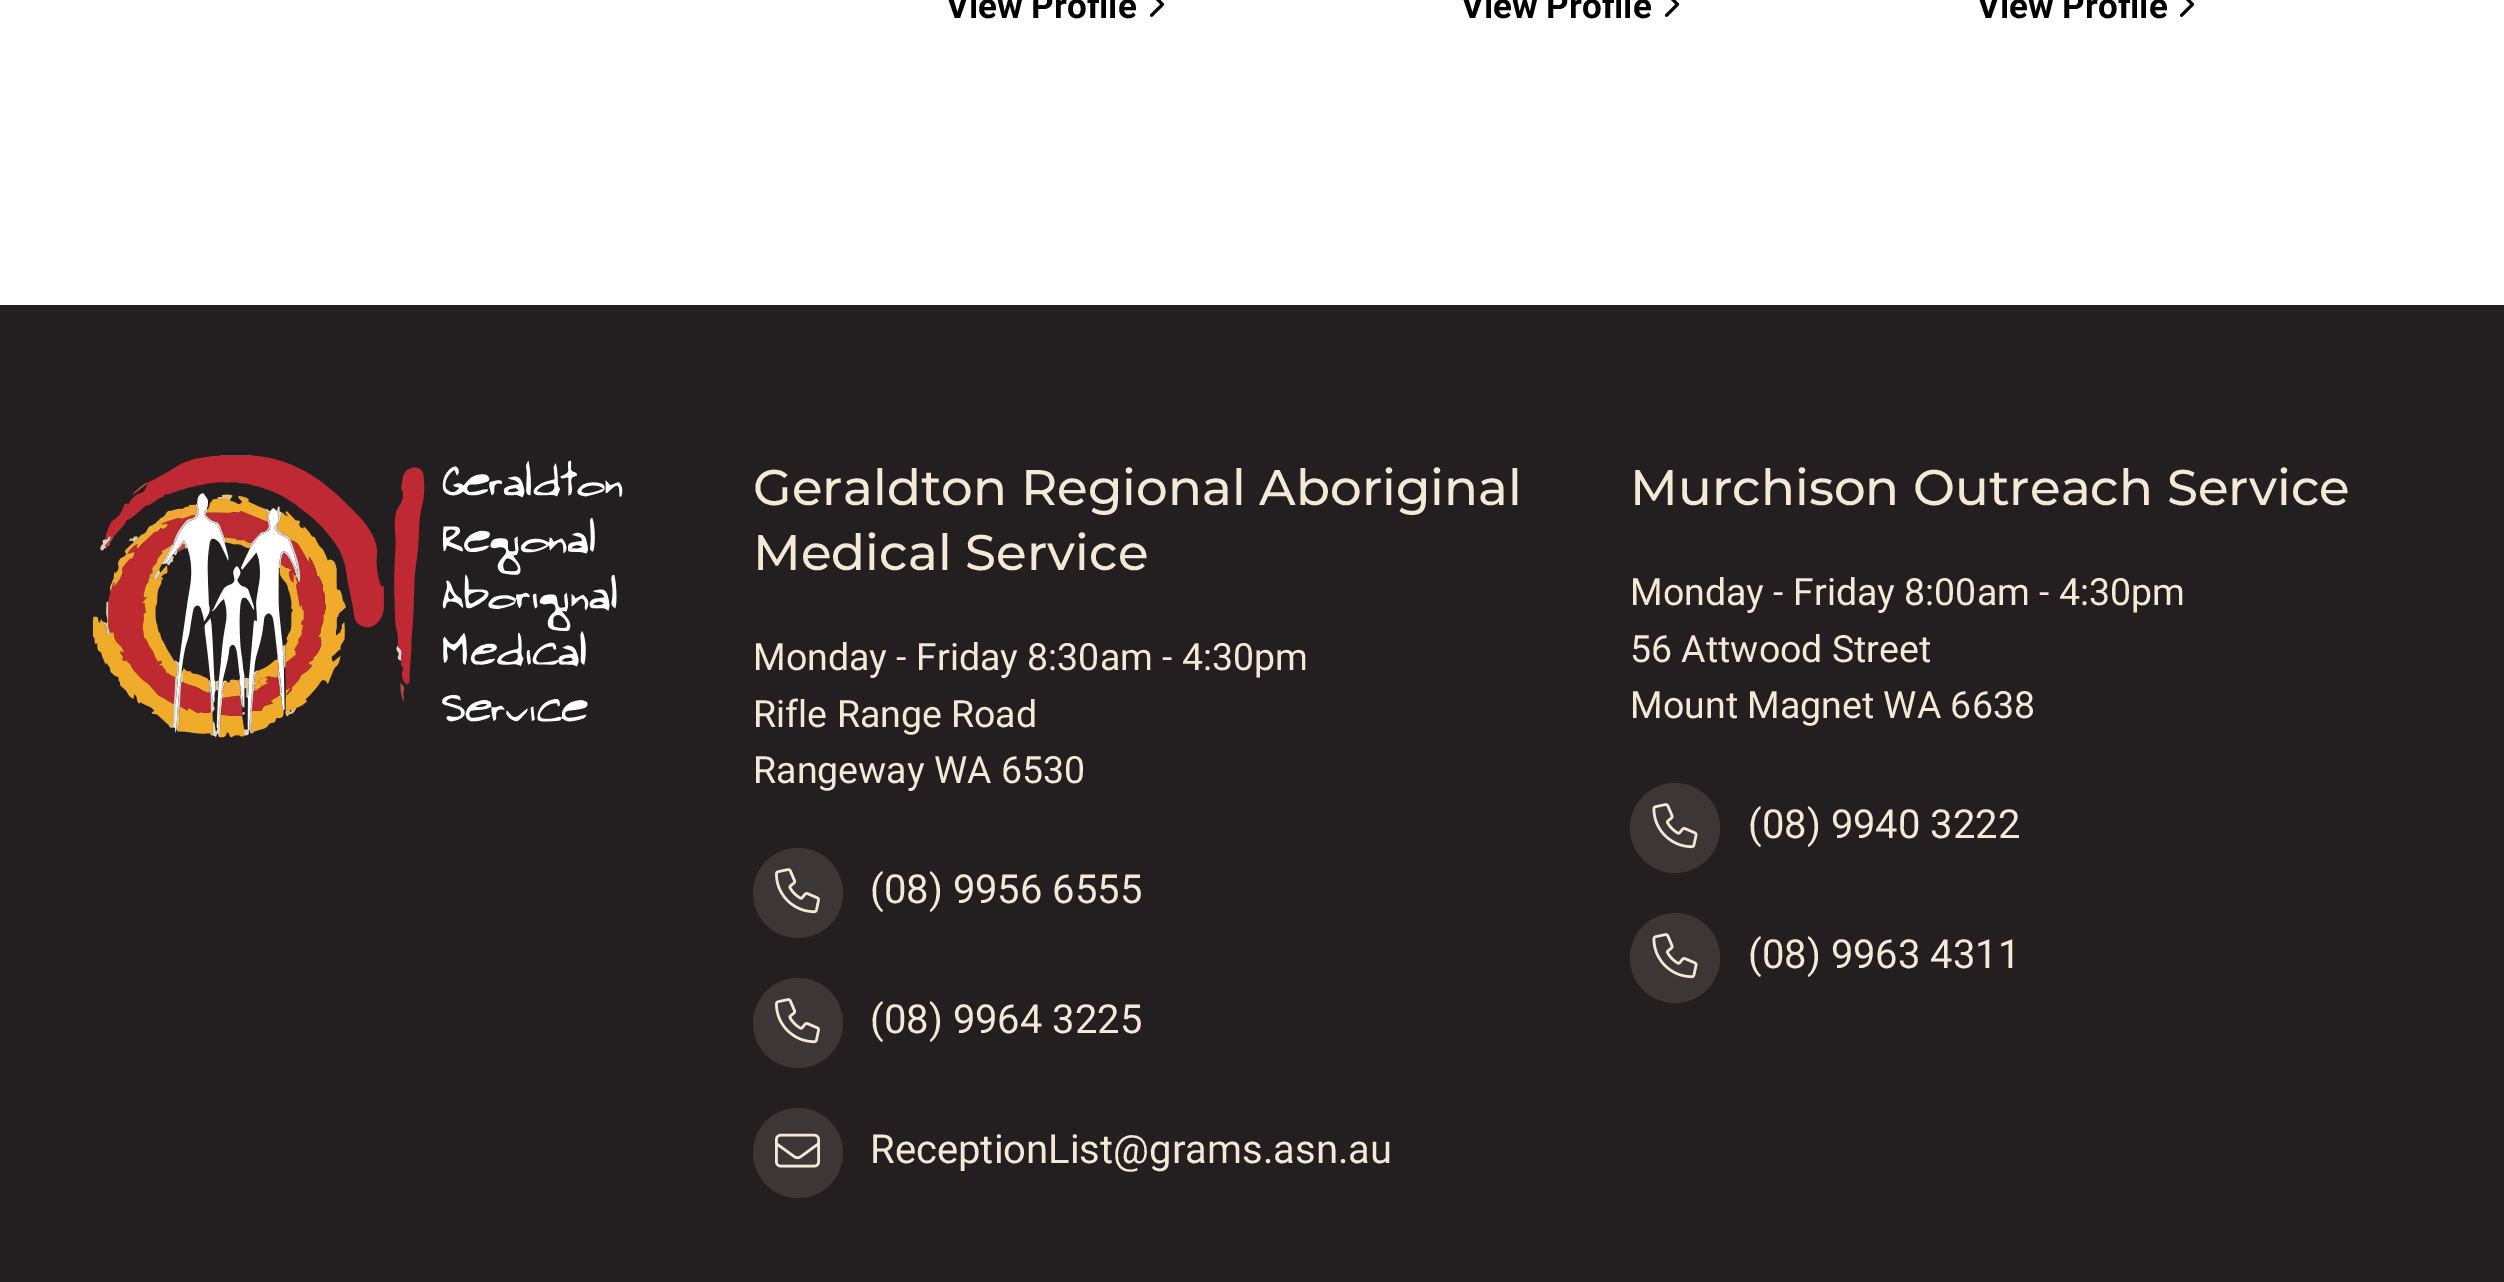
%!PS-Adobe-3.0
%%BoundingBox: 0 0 2504 1282
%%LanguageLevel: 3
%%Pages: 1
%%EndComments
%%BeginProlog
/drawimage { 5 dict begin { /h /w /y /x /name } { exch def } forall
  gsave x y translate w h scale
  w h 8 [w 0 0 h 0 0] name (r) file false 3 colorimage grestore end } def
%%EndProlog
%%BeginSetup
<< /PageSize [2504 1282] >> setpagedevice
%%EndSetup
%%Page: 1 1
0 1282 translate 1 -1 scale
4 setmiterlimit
1 setgray
0 0 2504 1282 rectfill
(images/1.raw) 1149 0 16 17 drawimage
(images/1.raw) 1664 0 16 17 drawimage
(images/1.raw) 2179 0 16 17 drawimage
0.137 0.122 0.125 setrgbcolor
0 305 2504 977 rectfill
(images/2.raw) 93 455 530 283 drawimage
0.235 0.216 0.212 setrgbcolor
newpath 798 893 45 0 360 arc closepath fill
(images/3.raw) 775 868 45 46 drawimage
newpath 798 1023 45 0 360 arc closepath fill
(images/3.raw) 775 998 45 46 drawimage
newpath 798 1153 45 0 360 arc closepath fill
(images/4.raw) 775 1133 45 35 drawimage
newpath 1675 828 45 0 360 arc closepath fill
(images/5.raw) 1652 803 46 46 drawimage
newpath 1675 958 45 0 360 arc closepath fill
(images/5.raw) 1652 933 46 46 drawimage
/Roboto-Bold [35 0 0 -35 0 0] selectfont
0 setgray
946 18 moveto (View Profile) show
1461 18 moveto (View Profile) show
1977 18 moveto (View Profile) show
/Montserrat-Medium [50 0 0 -50 0 0] selectfont
0.957 0.914 0.839 setrgbcolor
753 505 moveto (Geraldton Regional Aboriginal) show
753 570 moveto (Medical Service) show
/Roboto-Regular [37.5 0 0 -37.5 0 0] selectfont
753 670 moveto (Monday - Friday 8:30am - 4:30pm) show
753 727 moveto (Rifle Range Road) show
753 783 moveto (Rangeway WA 6530) show
/Roboto-Regular [40 0 0 -40 0 0] selectfont
870 903 moveto (\(08\) 9956 6555) show
870 1033 moveto (\(08\) 9964 3225) show
870 1163 moveto (ReceptionList@grams.asn.au) show
/Montserrat-Medium [50 0 0 -50 0 0] selectfont
1630 505 moveto (Murchison Outreach Service) show
/Roboto-Regular [37.5 0 0 -37.5 0 0] selectfont
1630 605 moveto (Monday - Friday 8:00am - 4:30pm) show
1630 662 moveto (56 Attwood Street) show
1630 718 moveto (Mount Magnet WA 6638) show
/Roboto-Regular [40 0 0 -40 0 0] selectfont
1748 838 moveto (\(08\) 9940 3222) show
1748 968 moveto (\(08\) 9963 4311) show
showpage
%%EOF
